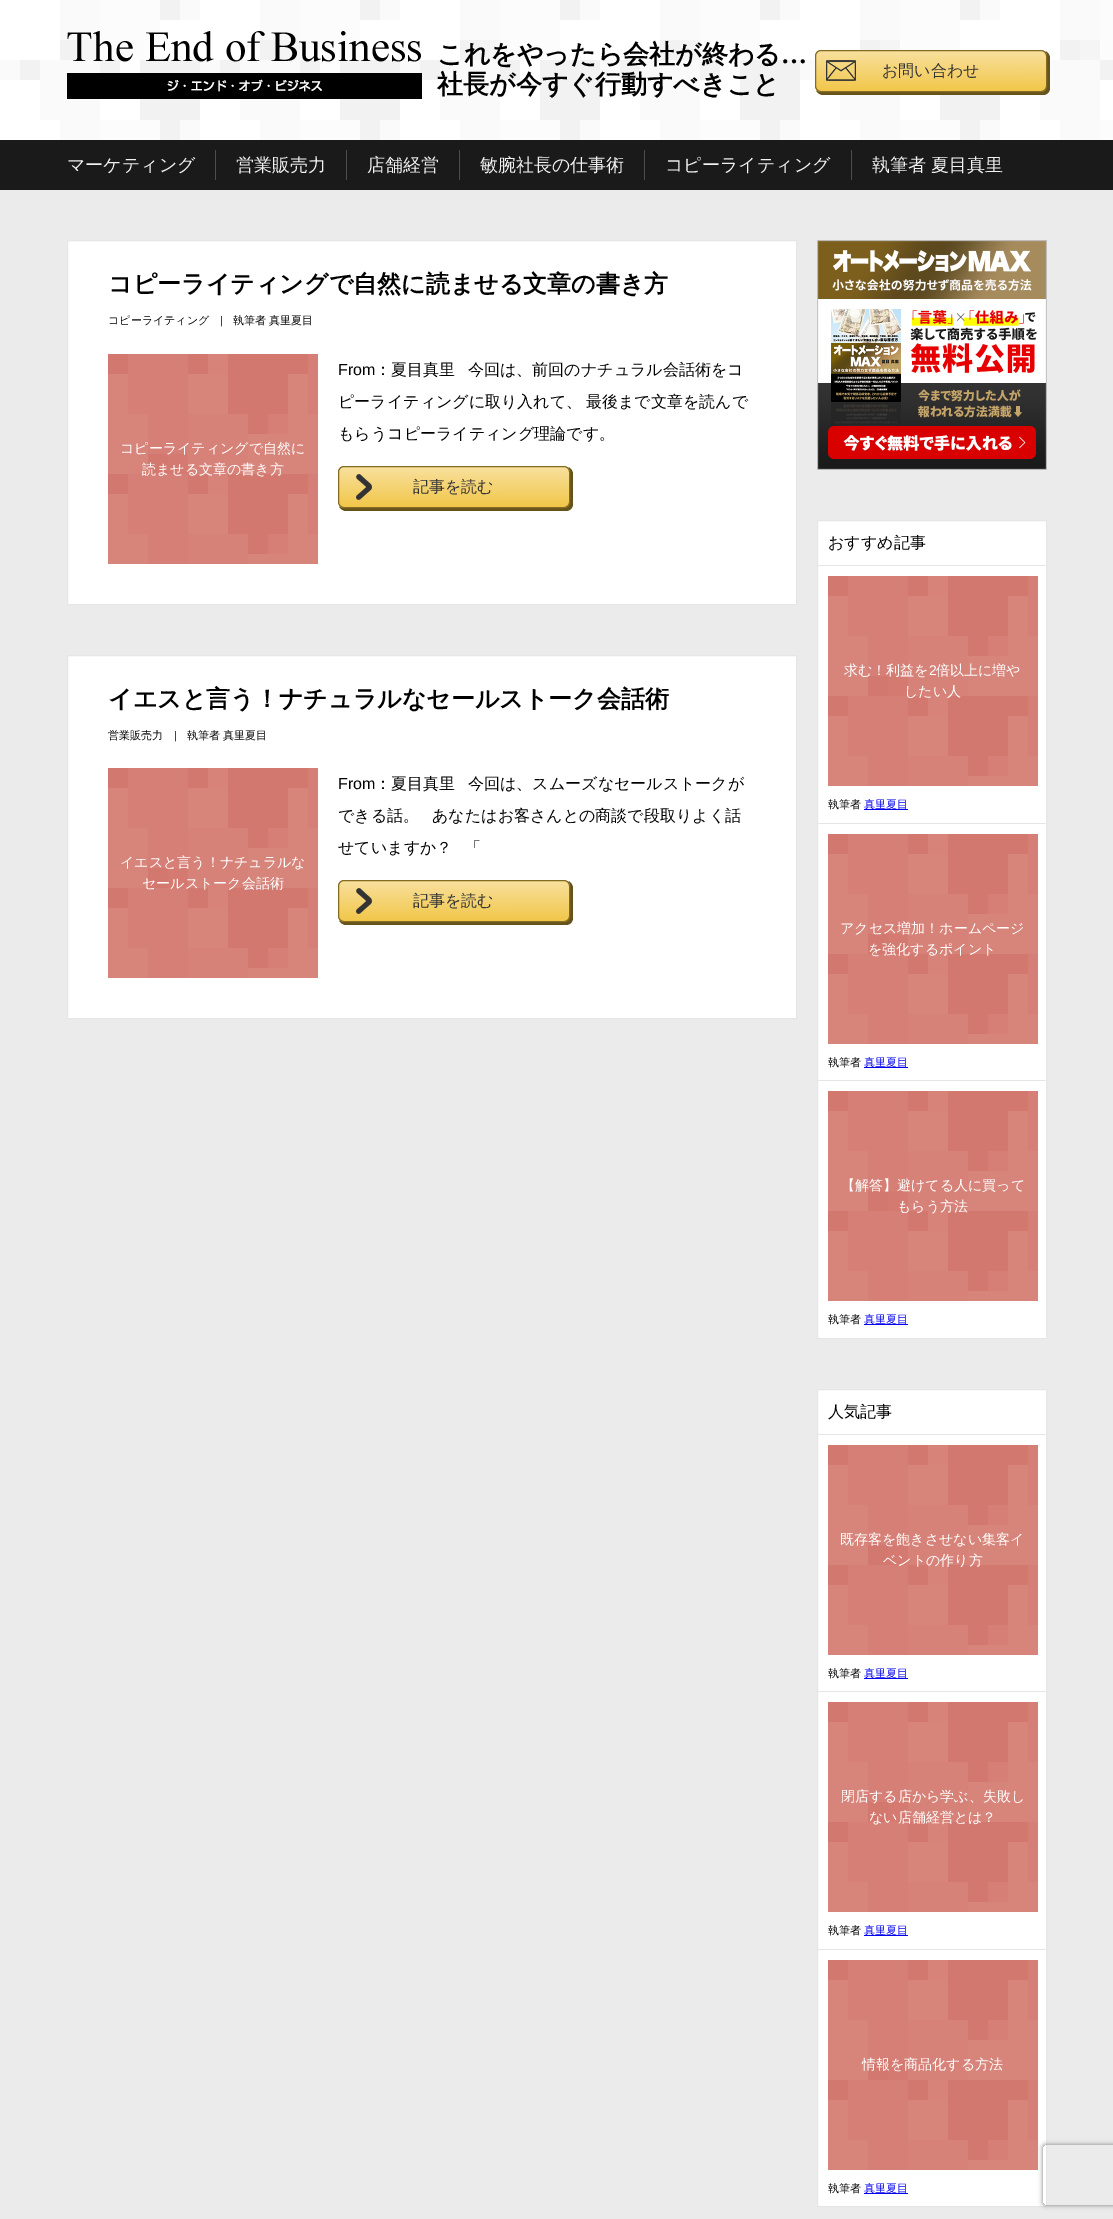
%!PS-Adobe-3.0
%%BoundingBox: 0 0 1113 2219
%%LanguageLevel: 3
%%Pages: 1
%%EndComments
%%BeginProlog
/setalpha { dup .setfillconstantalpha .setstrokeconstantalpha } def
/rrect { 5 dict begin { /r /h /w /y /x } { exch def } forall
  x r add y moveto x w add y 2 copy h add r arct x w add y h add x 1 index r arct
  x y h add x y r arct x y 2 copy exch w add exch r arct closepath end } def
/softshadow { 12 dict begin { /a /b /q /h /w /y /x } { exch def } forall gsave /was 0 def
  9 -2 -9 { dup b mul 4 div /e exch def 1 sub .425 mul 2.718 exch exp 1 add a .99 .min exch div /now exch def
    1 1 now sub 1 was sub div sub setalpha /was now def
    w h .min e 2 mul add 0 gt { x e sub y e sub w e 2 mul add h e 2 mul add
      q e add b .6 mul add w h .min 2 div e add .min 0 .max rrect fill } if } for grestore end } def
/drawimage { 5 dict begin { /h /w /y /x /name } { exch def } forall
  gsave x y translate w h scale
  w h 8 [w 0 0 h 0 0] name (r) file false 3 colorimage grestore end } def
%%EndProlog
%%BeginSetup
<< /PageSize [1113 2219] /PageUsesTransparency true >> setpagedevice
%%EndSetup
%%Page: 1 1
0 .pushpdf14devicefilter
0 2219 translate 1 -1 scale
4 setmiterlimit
1 setgray
0 0 1113 2219 rectfill
(images/1.raw) 0 0 1113 140 drawimage
(images/2.raw) 67 31 355 68 drawimage
0.4 0.325 0.106 setrgbcolor
newpath 816 90 moveto 817 93 820 95 823 95 curveto 1043 95 lineto 1047 95 1050 92 1050 88 curveto 1050 58 lineto 1050 55 1048 52 1045 51 curveto 1046 52 1047 54 1047 56 curveto 1047 86 lineto 1047 89 1044 92 1041 92 curveto 821 92 lineto 819 92 817 91 816 90 curveto closepath fill
(images/3.raw) 816 51 230 40 drawimage
0.522 0.424 0.137 setrgbcolor
815.5 50.5 231 41 5.5 rrect stroke
0.102 setgray
0 140 1113 50 rectfill
0.302 setgray
215 150 1 30 rectfill
346 150 1 30 rectfill
459 150 1 30 rectfill
644 150 1 30 rectfill
851 150 1 30 rectfill
0.922 setgray
0 190 1113 2029 rectfill
1 setgray
newpath 67.5 240.5 moveto 796.5 240.5 lineto 796.5 604.5 lineto 67.5 604.5 lineto closepath gsave fill grestore
0.902 setgray
stroke
(images/4.raw) 108 354 210 210 drawimage
0.4 0.325 0.106 setrgbcolor
newpath 339 506 moveto 340 509 343 511 346 511 curveto 566 511 lineto 570 511 573 508 573 504 curveto 573 474 lineto 573 471 571 468 568 467 curveto 569 468 570 470 570 472 curveto 570 502 lineto 570 505 567 508 564 508 curveto 344 508 lineto 342 508 340 507 339 506 curveto closepath fill
(images/5.raw) 339 467 230 40 drawimage
0.522 0.424 0.137 setrgbcolor
338.5 466.5 231 41 5.5 rrect stroke
1 setgray
newpath 67.5 655.5 moveto 796.5 655.5 lineto 796.5 1018.5 lineto 67.5 1018.5 lineto closepath gsave fill grestore
0.902 setgray
stroke
(images/4.raw) 108 768 210 210 drawimage
0.4 0.325 0.106 setrgbcolor
newpath 339 920 moveto 340 923 343 925 346 925 curveto 566 925 lineto 570 925 573 922 573 918 curveto 573 888 lineto 573 885 571 882 568 881 curveto 569 882 570 884 570 886 curveto 570 916 lineto 570 919 567 922 564 922 curveto 344 922 lineto 342 922 340 921 339 920 curveto closepath fill
(images/5.raw) 339 881 230 40 drawimage
0.522 0.424 0.137 setrgbcolor
338.5 880.5 231 41 5.5 rrect stroke
(images/6.raw) 817 240 230 230 drawimage
1 setgray
newpath 817.5 520.5 moveto 1046.5 520.5 lineto 1046.5 1338.5 lineto 817.5 1338.5 lineto closepath gsave fill grestore
0.902 setgray
stroke
818 565 228 1 rectfill
(images/4.raw) 828 576 210 210 drawimage
0 0 0.933 setrgbcolor
864 809 44 1 rectfill
0.902 setgray
818 823 228 1 rectfill
(images/4.raw) 828 834 210 210 drawimage
0 0 0.933 setrgbcolor
864 1067 44 1 rectfill
0.902 setgray
818 1080 228 1 rectfill
(images/4.raw) 828 1091 210 210 drawimage
0 0 0.933 setrgbcolor
864 1324 44 1 rectfill
1 setgray
newpath 817.5 1389.5 moveto 1046.5 1389.5 lineto 1046.5 2206.5 lineto 817.5 2206.5 lineto closepath gsave fill grestore
0.902 setgray
stroke
818 1434 228 1 rectfill
(images/4.raw) 828 1445 210 210 drawimage
0 0 0.933 setrgbcolor
864 1678 44 1 rectfill
0.902 setgray
818 1691 228 1 rectfill
(images/4.raw) 828 1702 210 210 drawimage
0 0 0.933 setrgbcolor
864 1935 44 1 rectfill
0.902 setgray
818 1949 228 1 rectfill
(images/4.raw) 828 1960 210 210 drawimage
0 0 0.933 setrgbcolor
864 2193 44 1 rectfill
gsave
newpath 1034 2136 moveto 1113 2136 lineto 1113 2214 lineto 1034 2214 lineto closepath 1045 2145 moveto 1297 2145 lineto 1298 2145 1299 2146 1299 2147 curveto 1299 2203 lineto 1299 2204 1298 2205 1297 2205 curveto 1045 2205 lineto 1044 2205 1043 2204 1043 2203 curveto 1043 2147 lineto 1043 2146 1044 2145 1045 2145 curveto closepath eoclip newpath
0.502 setgray
1043 2145 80 60 2 2.5 1 softshadow
grestore
/WenQuanYiZenHei-Bold [26 0 0 -26 0 0] selectfont
0 setgray
437 63 moveto (これをやったら会社が終わる) show
/LiberationSerif-Bold [26 0 0 -26 0 0] selectfont
781 63 moveto (…) show
/WenQuanYiZenHei-Bold [26 0 0 -26 0 0] selectfont
437 93 moveto (社長が今すぐ行動すべきこと) show
/WenQuanYiZenHei-Medium [16 0 0 -16 0 0] selectfont
0.2 setgray
882 76 moveto (お問い合わせ) show
/WenQuanYiZenHei-Medium [18 0 0 -18 0 0] selectfont
0.949 setgray
67 171 moveto (マーケティング) show
236 171 moveto (営業販売力) show
367 171 moveto (店舗経営) show
480 171 moveto (敏腕社長の仕事術) show
665 171 moveto (コピーライティング) show
872 171 moveto (執筆者 夏目真里) show
/WenQuanYiZenHei-Bold [24 0 0 -24 0 0] selectfont
0 setgray
108 292 moveto (コピーライティングで自然に読ませる文章の書き方) show
/WenQuanYiZenHei-Medium [11 0 0 -11 0 0] selectfont
108 324 moveto (コピーライティング) show
/LiberationSans-Regular [11 0 0 -11 0 0] selectfont
220 324 moveto (|) show
/WenQuanYiZenHei-Medium [11 0 0 -11 0 0] selectfont
233 324 moveto (執筆者 真里夏目) show
/WenQuanYiZenHei-Medium [14 0 0 -14 0 0] selectfont
1 setgray
120 453 moveto (コピーライティングで自然に) show
142 474 moveto (読ませる文章の書き方) show
/LiberationSans-Regular [16 0 0 -16 0 0] selectfont
0 setgray
338 375 moveto (From) show
/WenQuanYiZenHei-Medium [16 0 0 -16 0 0] selectfont
375 375 moveto (：夏目真里) show
468 375 moveto (今回は、前回のナチュラル会話術をコ) show
338 407 moveto (ピーライティングに取り入れて、) show
586 407 moveto (最後まで文章を読んで) show
338 439 moveto (もらうコピーライティング理論です。) show
0.2 setgray
413 492 moveto (記事を読む) show
/WenQuanYiZenHei-Bold [24 0 0 -24 0 0] selectfont
0 setgray
108 707 moveto (イエスと言う！ナチュラルなセールストーク会話術) show
/WenQuanYiZenHei-Medium [11 0 0 -11 0 0] selectfont
108 739 moveto (営業販売力) show
/LiberationSans-Regular [11 0 0 -11 0 0] selectfont
174 739 moveto (|) show
/WenQuanYiZenHei-Medium [11 0 0 -11 0 0] selectfont
187 739 moveto (執筆者 真里夏目) show
/WenQuanYiZenHei-Medium [14 0 0 -14 0 0] selectfont
1 setgray
120 867 moveto (イエスと言う！ナチュラルな) show
142 888 moveto (セールストーク会話術) show
/LiberationSans-Regular [16 0 0 -16 0 0] selectfont
0 setgray
338 789 moveto (From) show
/WenQuanYiZenHei-Medium [16 0 0 -16 0 0] selectfont
375 789 moveto (：夏目真里) show
468 789 moveto (今回は、スムーズなセールストークが) show
338 821 moveto (できる話。) show
432 821 moveto (あなたはお客さんとの商談で段取りよく話) show
338 853 moveto (せていますか？) show
465 853 moveto (「) show
0.2 setgray
413 906 moveto (記事を読む) show
0 setgray
828 548 moveto (おすすめ記事) show
/WenQuanYiZenHei-Medium [14 0 0 -14 0 0] selectfont
1 setgray
844 675 moveto (求む！利益を) show
/LiberationSans-Regular [14 0 0 -14 0 0] selectfont
929 675 moveto (2) show
/WenQuanYiZenHei-Medium [14 0 0 -14 0 0] selectfont
936 675 moveto (倍以上に増や) show
904 696 moveto (したい人) show
/WenQuanYiZenHei-Medium [11 0 0 -11 0 0] selectfont
0 setgray
828 808 moveto (執筆者) show
0 0 0.933 setrgbcolor
864 808 moveto (真里夏目) show
/WenQuanYiZenHei-Medium [14 0 0 -14 0 0] selectfont
1 setgray
840 933 moveto (アクセス増加！ホームページ) show
868 954 moveto (を強化するポイント) show
/WenQuanYiZenHei-Medium [11 0 0 -11 0 0] selectfont
0 setgray
828 1066 moveto (執筆者) show
0 0 0.933 setrgbcolor
864 1066 moveto (真里夏目) show
/WenQuanYiZenHei-Medium [14 0 0 -14 0 0] selectfont
1 setgray
841 1190 moveto (【解答】避けてる人に買って) show
897 1211 moveto (もらう方法) show
/WenQuanYiZenHei-Medium [11 0 0 -11 0 0] selectfont
0 setgray
828 1323 moveto (執筆者) show
0 0 0.933 setrgbcolor
864 1323 moveto (真里夏目) show
/WenQuanYiZenHei-Medium [16 0 0 -16 0 0] selectfont
0 setgray
828 1417 moveto (人気記事) show
/WenQuanYiZenHei-Medium [14 0 0 -14 0 0] selectfont
1 setgray
840 1544 moveto (既存客を飽きさせない集客イ) show
883 1565 moveto (ベントの作り方) show
/WenQuanYiZenHei-Medium [11 0 0 -11 0 0] selectfont
0 setgray
828 1677 moveto (執筆者) show
0 0 0.933 setrgbcolor
864 1677 moveto (真里夏目) show
/WenQuanYiZenHei-Medium [14 0 0 -14 0 0] selectfont
1 setgray
841 1801 moveto (閉店する店から学ぶ、失敗し) show
869 1822 moveto (ない店舗経営とは？) show
/WenQuanYiZenHei-Medium [11 0 0 -11 0 0] selectfont
0 setgray
828 1934 moveto (執筆者) show
0 0 0.933 setrgbcolor
864 1934 moveto (真里夏目) show
/WenQuanYiZenHei-Medium [14 0 0 -14 0 0] selectfont
1 setgray
862 2069 moveto (情報を商品化する方法) show
/WenQuanYiZenHei-Medium [11 0 0 -11 0 0] selectfont
0 setgray
828 2192 moveto (執筆者) show
0 0 0.933 setrgbcolor
864 2192 moveto (真里夏目) show
.poppdf14devicefilter showpage
%%EOF
